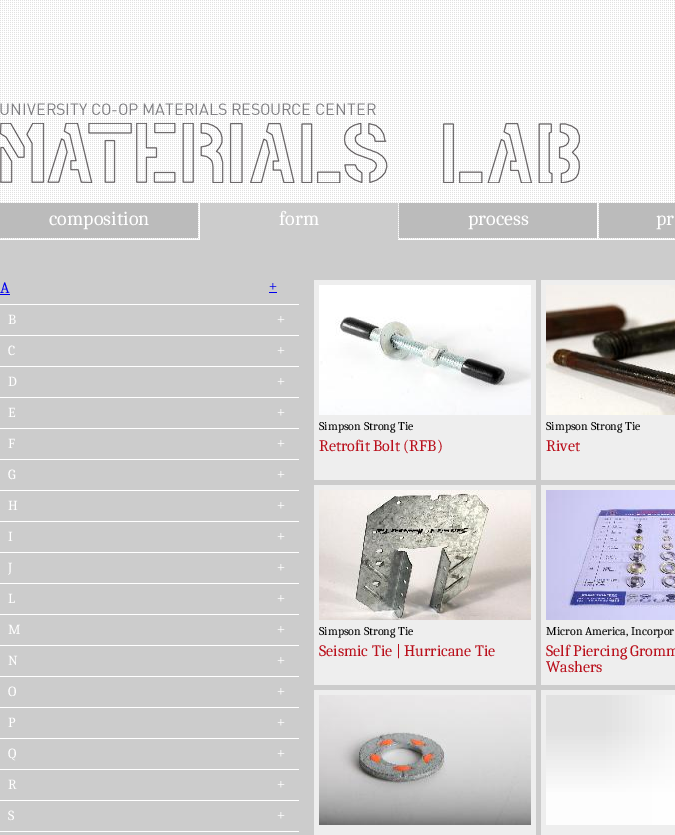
%!PS-Adobe-3.0
%%BoundingBox: 0 0 675 835
%%LanguageLevel: 3
%%Pages: 1
%%EndComments
%%BeginProlog
/drawimage { 5 dict begin { /h /w /y /x /name } { exch def } forall
  gsave x y translate w h scale
  w h 8 [w 0 0 h 0 0] name (r) file false 3 colorimage grestore end } def
%%EndProlog
%%BeginSetup
<< /PageSize [675 835] >> setpagedevice
%%EndSetup
%%Page: 1 1
0 835 translate 1 -1 scale
4 setmiterlimit
1 setgray
0 0 675 835 rectfill
(images/1.raw) 0 0 675 240 drawimage
(images/2.raw) 0 103 580 80 drawimage
0.733 setgray
0 203 198 35 rectfill
0.8 setgray
200 203 198 37 rectfill
0.733 setgray
399 203 198 35 rectfill
599 203 76 35 rectfill
0.8 setgray
0 240 675 595 rectfill
0 0 0.933 setrgbcolor
0 294 10 1 rectfill
269 292 8 1 rectfill
1 setgray
0 304 299 1 rectfill
0 335 299 1 rectfill
0 366 299 1 rectfill
0 397 299 1 rectfill
0 428 299 1 rectfill
0 459 299 1 rectfill
0 490 299 1 rectfill
0 521 299 1 rectfill
0 552 299 1 rectfill
0 583 299 1 rectfill
0 614 299 1 rectfill
0 645 299 1 rectfill
0 676 299 1 rectfill
0 707 299 1 rectfill
0 738 299 1 rectfill
0 769 299 1 rectfill
0 800 299 1 rectfill
0 831 299 1 rectfill
0.933 setgray
314 280 222 200 rectfill
(images/3.raw) 319 285 212 130 drawimage
541 280 134 200 rectfill
(images/4.raw) 546 285 129 130 drawimage
314 485 222 200 rectfill
(images/5.raw) 319 490 212 130 drawimage
541 485 134 200 rectfill
(images/6.raw) 546 490 129 130 drawimage
314 690 222 145 rectfill
(images/7.raw) 319 695 212 130 drawimage
541 690 134 145 rectfill
(images/8.raw) 546 695 129 130 drawimage
/Caladea-Regular [20 0 0 -20 0 0] selectfont
1 setgray
49 225 moveto (composition) show
279 225 moveto (form) show
468 225 moveto (process) show
656 225 moveto (pr) show
/Caladea-Regular [16 0 0 -16 0 0] selectfont
0 0 0.933 setrgbcolor
0 293 moveto (A) show
/LiberationSerif-Regular [14 0 0 -14 0 0] selectfont
269 291 moveto (+) show
/Caladea-Regular [14 0 0 -14 0 0] selectfont
1 setgray
8 324 moveto (B) show
/LiberationSerif-Regular [14 0 0 -14 0 0] selectfont
277 324 moveto (+) show
/Caladea-Regular [14 0 0 -14 0 0] selectfont
8 355 moveto (C) show
/LiberationSerif-Regular [14 0 0 -14 0 0] selectfont
277 355 moveto (+) show
/Caladea-Regular [14 0 0 -14 0 0] selectfont
8 386 moveto (D) show
/LiberationSerif-Regular [14 0 0 -14 0 0] selectfont
277 386 moveto (+) show
/Caladea-Regular [14 0 0 -14 0 0] selectfont
8 417 moveto (E) show
/LiberationSerif-Regular [14 0 0 -14 0 0] selectfont
277 417 moveto (+) show
/Caladea-Regular [14 0 0 -14 0 0] selectfont
8 448 moveto (F) show
/LiberationSerif-Regular [14 0 0 -14 0 0] selectfont
277 448 moveto (+) show
/Caladea-Regular [14 0 0 -14 0 0] selectfont
8 479 moveto (G) show
/LiberationSerif-Regular [14 0 0 -14 0 0] selectfont
277 479 moveto (+) show
/Caladea-Regular [14 0 0 -14 0 0] selectfont
8 510 moveto (H) show
/LiberationSerif-Regular [14 0 0 -14 0 0] selectfont
277 510 moveto (+) show
/Caladea-Regular [14 0 0 -14 0 0] selectfont
8 541 moveto (I) show
/LiberationSerif-Regular [14 0 0 -14 0 0] selectfont
277 541 moveto (+) show
/Caladea-Regular [14 0 0 -14 0 0] selectfont
8 572 moveto (J) show
/LiberationSerif-Regular [14 0 0 -14 0 0] selectfont
277 572 moveto (+) show
/Caladea-Regular [14 0 0 -14 0 0] selectfont
8 603 moveto (L) show
/LiberationSerif-Regular [14 0 0 -14 0 0] selectfont
277 603 moveto (+) show
/Caladea-Regular [14 0 0 -14 0 0] selectfont
8 634 moveto (M) show
/LiberationSerif-Regular [14 0 0 -14 0 0] selectfont
277 634 moveto (+) show
/Caladea-Regular [14 0 0 -14 0 0] selectfont
8 665 moveto (N) show
/LiberationSerif-Regular [14 0 0 -14 0 0] selectfont
277 665 moveto (+) show
/Caladea-Regular [14 0 0 -14 0 0] selectfont
8 696 moveto (O) show
/LiberationSerif-Regular [14 0 0 -14 0 0] selectfont
277 696 moveto (+) show
/Caladea-Regular [14 0 0 -14 0 0] selectfont
8 727 moveto (P) show
/LiberationSerif-Regular [14 0 0 -14 0 0] selectfont
277 727 moveto (+) show
/Caladea-Regular [14 0 0 -14 0 0] selectfont
8 758 moveto (Q) show
/LiberationSerif-Regular [14 0 0 -14 0 0] selectfont
277 758 moveto (+) show
/Caladea-Regular [14 0 0 -14 0 0] selectfont
8 789 moveto (R) show
/LiberationSerif-Regular [14 0 0 -14 0 0] selectfont
277 789 moveto (+) show
/Caladea-Regular [14 0 0 -14 0 0] selectfont
8 820 moveto (S) show
/LiberationSerif-Regular [14 0 0 -14 0 0] selectfont
277 820 moveto (+) show
/Caladea-Regular [12 0 0 -12 0 0] selectfont
0 setgray
319 430 moveto (Simpson Strong Tie) show
/Caladea-Regular [16 0 0 -16 0 0] selectfont
0.729 0.063 0.11 setrgbcolor
319 451 moveto (Retrofit Bolt \(RFB\)) show
/Caladea-Regular [12 0 0 -12 0 0] selectfont
0 setgray
546 430 moveto (Simpson Strong Tie) show
/Caladea-Regular [16 0 0 -16 0 0] selectfont
0.729 0.063 0.11 setrgbcolor
546 451 moveto (Rivet) show
/Caladea-Regular [12 0 0 -12 0 0] selectfont
0 setgray
319 635 moveto (Simpson Strong Tie) show
/Caladea-Regular [16 0 0 -16 0 0] selectfont
0.729 0.063 0.11 setrgbcolor
319 656 moveto (Seismic Tie | Hurricane Tie) show
/Caladea-Regular [12 0 0 -12 0 0] selectfont
0 setgray
546 635 moveto (Micron America, Incorpor) show
/Caladea-Regular [16 0 0 -16 0 0] selectfont
0.729 0.063 0.11 setrgbcolor
546 656 moveto (Self Piercing Gromm) show
546 672 moveto (Washers) show
showpage
%%EOF
